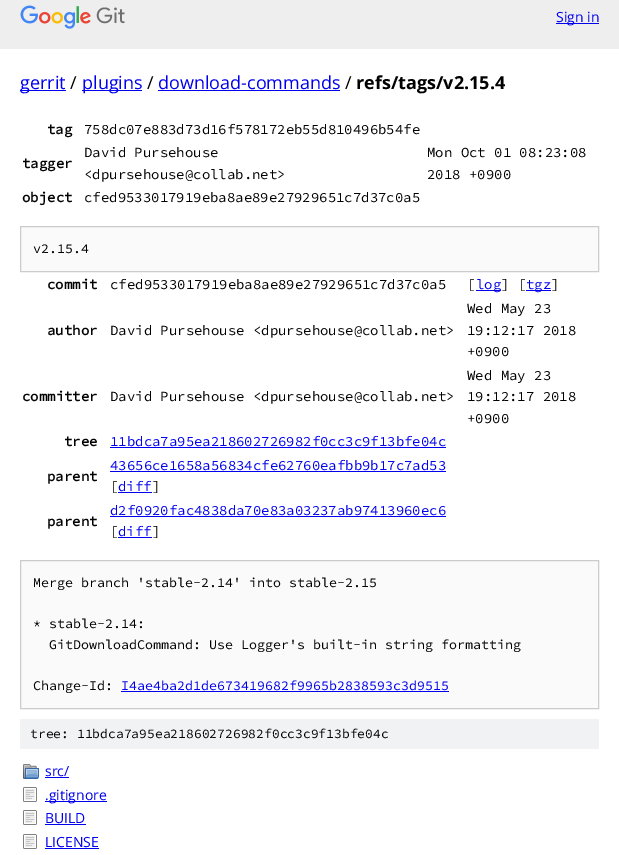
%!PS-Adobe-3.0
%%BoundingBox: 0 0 619 855
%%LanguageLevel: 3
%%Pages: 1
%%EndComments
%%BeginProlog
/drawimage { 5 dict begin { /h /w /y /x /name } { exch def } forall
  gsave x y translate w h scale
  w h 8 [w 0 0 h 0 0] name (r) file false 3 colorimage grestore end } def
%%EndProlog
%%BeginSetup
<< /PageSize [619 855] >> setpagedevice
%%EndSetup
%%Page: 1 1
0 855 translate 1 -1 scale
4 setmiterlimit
1 setgray
0 0 619 855 rectfill
0.933 setgray
0 0 619 49 rectfill
(images/1.raw) 20 5 105 24 drawimage
0 0 0.933 setrgbcolor
556 23 43 1 rectfill
20 90 46 1 rectfill
82 90 60 1 rectfill
158 90 182 1 rectfill
0.98 setgray
newpath 20.5 226.5 moveto 598.5 226.5 lineto 598.5 271.5 lineto 20.5 271.5 lineto closepath gsave fill grestore
0.8 setgray
stroke
0 0 0.933 setrgbcolor
476 290 25 1 rectfill
526 290 25 1 rectfill
110 447 336 1 rectfill
110 471 336 1 rectfill
118 492 34 1 rectfill
110 516 336 1 rectfill
118 537 34 1 rectfill
0.98 setgray
newpath 20.5 560.5 moveto 598.5 560.5 lineto 598.5 708.5 lineto 20.5 708.5 lineto closepath gsave fill grestore
0.8 setgray
stroke
0 0 0.933 setrgbcolor
121 691 328 1 rectfill
0.945 0.949 0.953 setrgbcolor
20 719 579 30 rectfill
(images/2.raw) 23 764 16 15 drawimage
0 0 0.933 setrgbcolor
45 777 24 1 rectfill
(images/3.raw) 23 787 14 15 drawimage
45 801 62 1 rectfill
(images/3.raw) 23 810 14 15 drawimage
45 824 41 1 rectfill
(images/3.raw) 23 834 14 15 drawimage
45 848 54 1 rectfill
/OpenSans-Regular [14 0 0 -14 0 0] selectfont
556 22 moveto (Sign in) show
/OpenSans-Regular [18 0 0 -18 0 0] selectfont
20 89 moveto (gerrit) show
0 setgray
70 89 moveto (/) show
0 0 0.933 setrgbcolor
82 89 moveto (plugins) show
0 setgray
147 89 moveto (/) show
0 0 0.933 setrgbcolor
158 89 moveto (download-commands) show
0 setgray
345 89 moveto (/) show
/OpenSans-Bold [18 0 0 -18 0 0] selectfont
356 89 moveto (refs/tags/v2.15.4) show
/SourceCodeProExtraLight-Bold [14 0 0 -14 0 0] selectfont
47 134 moveto (tag) show
/SourceCodeProExtraLight-ExtraLight [14 0 0 -14 0 0] selectfont
84 134 moveto (758dc07e883d73d16f578172eb55d810496b54fe) show
/SourceCodeProExtraLight-Bold [14 0 0 -14 0 0] selectfont
22 168 moveto (tagger) show
/SourceCodeProExtraLight-ExtraLight [14 0 0 -14 0 0] selectfont
84 157 moveto (David Pursehouse) show
84 179 moveto (<dpursehouse@collab.net>) show
427 157 moveto (Mon Oct 01 08:23:08) show
427 179 moveto (2018 +0900) show
/SourceCodeProExtraLight-Bold [14 0 0 -14 0 0] selectfont
22 202 moveto (object) show
/SourceCodeProExtraLight-ExtraLight [14 0 0 -14 0 0] selectfont
84 202 moveto (cfed9533017919eba8ae89e27929651c7d37c0a5) show
/SourceCodeProExtraLight-ExtraLight [13.35 0 0 -13.35 0 0] selectfont
33 253 moveto (v2.15.4) show
/SourceCodeProExtraLight-Bold [14 0 0 -14 0 0] selectfont
47 289 moveto (commit) show
/SourceCodeProExtraLight-ExtraLight [14 0 0 -14 0 0] selectfont
110 289 moveto (cfed9533017919eba8ae89e27929651c7d37c0a5) show
467 289 moveto ([) show
0 0 0.933 setrgbcolor
476 289 moveto (log) show
0 setgray
501 289 moveto (] [) show
0 0 0.933 setrgbcolor
526 289 moveto (tgz) show
0 setgray
551 289 moveto (]) show
/SourceCodeProExtraLight-Bold [14 0 0 -14 0 0] selectfont
47 335 moveto (author) show
/SourceCodeProExtraLight-ExtraLight [14 0 0 -14 0 0] selectfont
110 335 moveto (David Pursehouse <dpursehouse@collab.net>) show
467 313 moveto (Wed May 23) show
467 335 moveto (19:12:17 2018) show
467 356 moveto (+0900) show
/SourceCodeProExtraLight-Bold [14 0 0 -14 0 0] selectfont
22 401 moveto (committer) show
/SourceCodeProExtraLight-ExtraLight [14 0 0 -14 0 0] selectfont
110 401 moveto (David Pursehouse <dpursehouse@collab.net>) show
467 380 moveto (Wed May 23) show
467 401 moveto (19:12:17 2018) show
467 423 moveto (+0900) show
/SourceCodeProExtraLight-Bold [14 0 0 -14 0 0] selectfont
64 446 moveto (tree) show
/SourceCodeProExtraLight-ExtraLight [14 0 0 -14 0 0] selectfont
0 0 0.933 setrgbcolor
110 446 moveto (11bdca7a95ea218602726982f0cc3c9f13bfe04c) show
/SourceCodeProExtraLight-Bold [14 0 0 -14 0 0] selectfont
0 setgray
47 481 moveto (parent) show
/SourceCodeProExtraLight-ExtraLight [14 0 0 -14 0 0] selectfont
0 0 0.933 setrgbcolor
110 470 moveto (43656ce1658a56834cfe62760eafbb9b17c7ad53) show
0 setgray
110 491 moveto ([) show
0 0 0.933 setrgbcolor
118 491 moveto (diff) show
0 setgray
152 491 moveto (]) show
/SourceCodeProExtraLight-Bold [14 0 0 -14 0 0] selectfont
47 526 moveto (parent) show
/SourceCodeProExtraLight-ExtraLight [14 0 0 -14 0 0] selectfont
0 0 0.933 setrgbcolor
110 515 moveto (d2f0920fac4838da70e83a03237ab97413960ec6) show
0 setgray
110 536 moveto ([) show
0 0 0.933 setrgbcolor
118 536 moveto (diff) show
0 setgray
152 536 moveto (]) show
/SourceCodeProExtraLight-ExtraLight [13.35 0 0 -13.35 0 0] selectfont
33 587 moveto (Merge branch 'stable-2.14' into stable-2.15) show
33 628 moveto (* stable-2.14:) show
49 649 moveto (GitDownloadCommand: Use Logger's built-in string formatting) show
33 690 moveto (Change-Id:) show
0 0 0.933 setrgbcolor
121 690 moveto (I4ae4ba2d1de673419682f9965b2838593c3d9515) show
/SourceCodeProExtraLight-ExtraLight [13 0 0 -13 0 0] selectfont
0 setgray
30 738 moveto (tree: 11bdca7a95ea218602726982f0cc3c9f13bfe04c) show
/OpenSans-Regular [14 0 0 -14 0 0] selectfont
0 0 0.933 setrgbcolor
45 776 moveto (src/) show
45 800 moveto (.gitignore) show
45 823 moveto (BUILD) show
45 847 moveto (LICENSE) show
showpage
%%EOF
